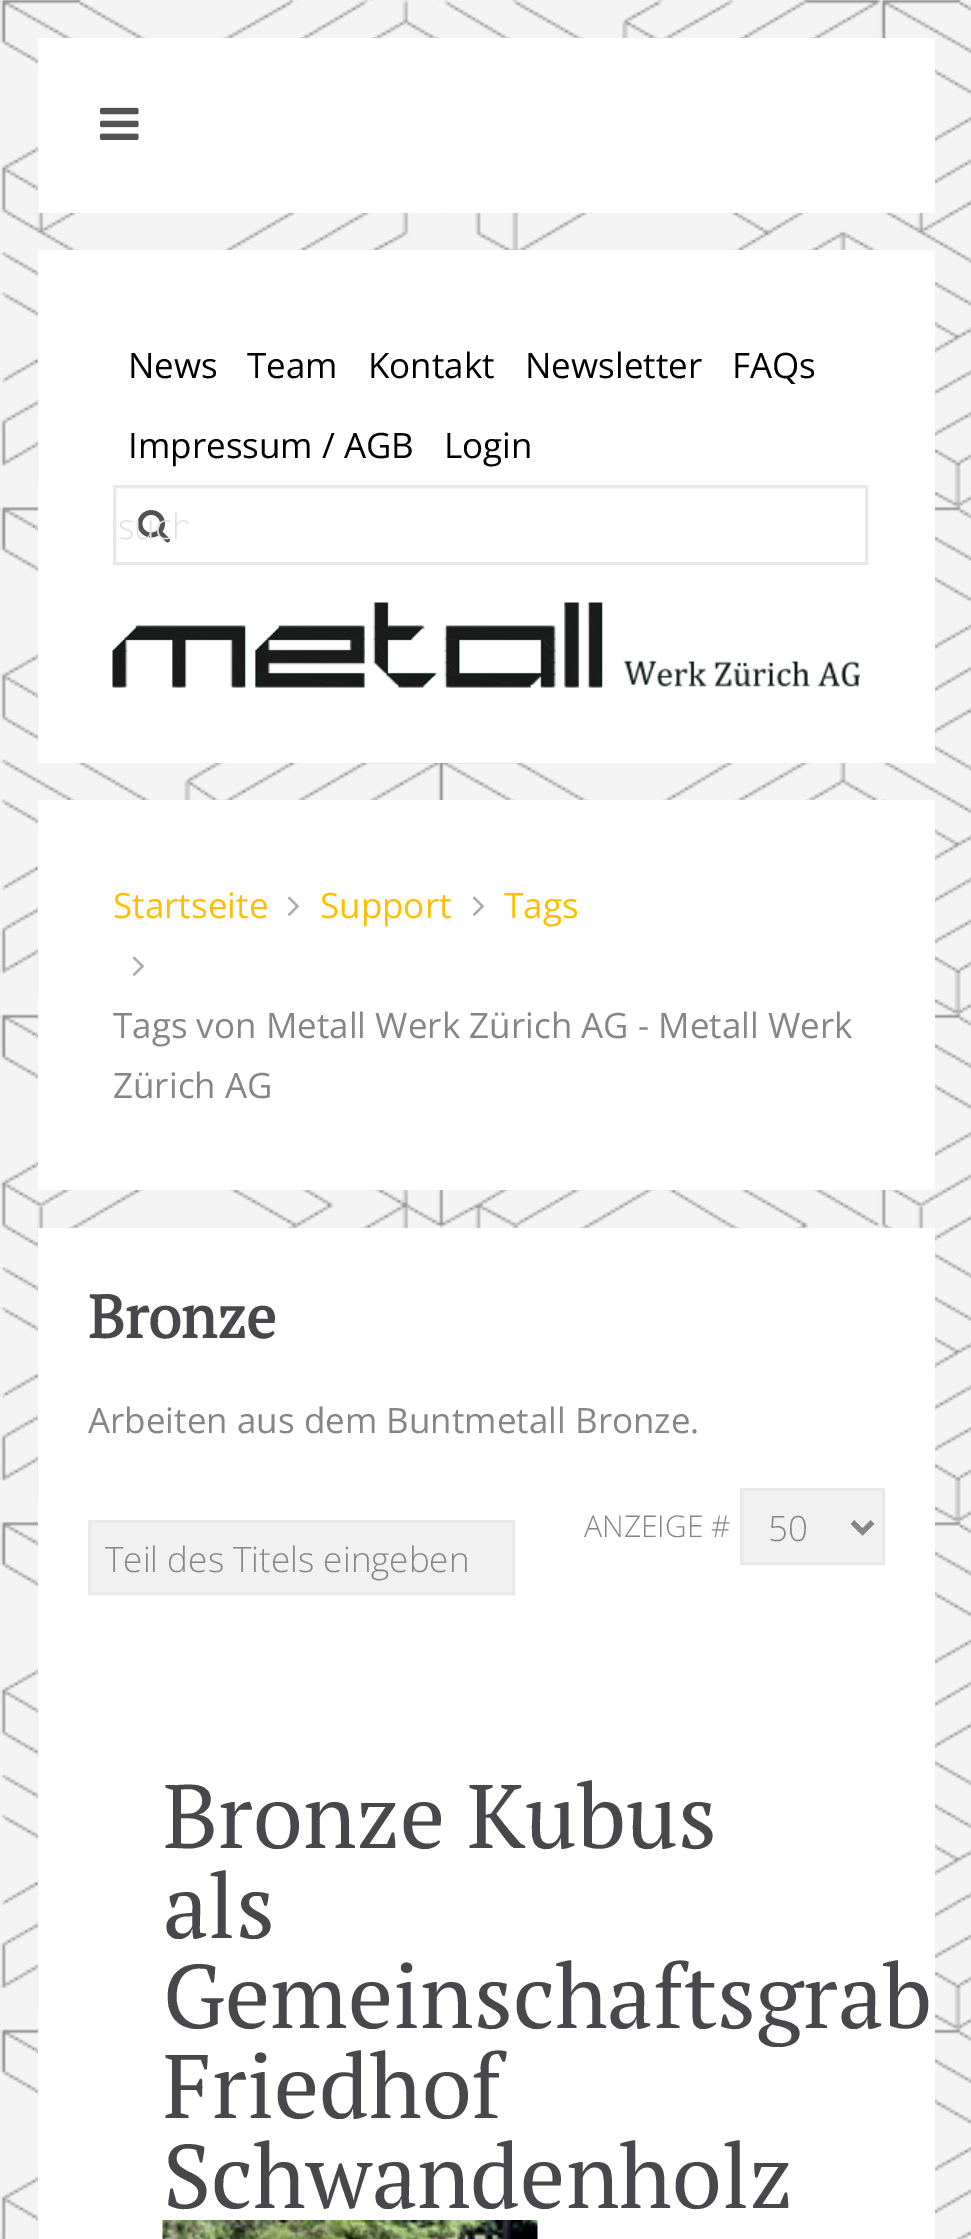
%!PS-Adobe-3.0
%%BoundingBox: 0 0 971 2239
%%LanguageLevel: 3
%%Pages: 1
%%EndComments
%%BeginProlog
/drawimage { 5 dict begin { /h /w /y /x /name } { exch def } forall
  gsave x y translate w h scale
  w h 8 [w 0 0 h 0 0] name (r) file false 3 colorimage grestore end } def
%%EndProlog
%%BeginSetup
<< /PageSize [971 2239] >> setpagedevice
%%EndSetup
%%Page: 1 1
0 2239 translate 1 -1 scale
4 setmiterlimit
0.957 setgray
0 0 971 2239 rectfill
(images/1.raw) 0 0 971 2239 drawimage
1 setgray
38 38 897 175 rectfill
(images/2.raw) 100 107 39 33 drawimage
38 250 897 513 rectfill
0.91 setgray
3 setlinewidth
114.5 486.5 752 77 rectstroke
(images/3.raw) 137 510 33 33 drawimage
(images/4.raw) 112 602 748 86 drawimage
1 setgray
38 800 897 390 rectfill
(images/5.raw) 287 896 12 20 drawimage
(images/5.raw) 472 896 12 20 drawimage
(images/5.raw) 132 956 12 20 drawimage
38 1228 897 1011 rectfill
0.945 setgray
newpath 741.5 1489.5 moveto 883.5 1489.5 lineto 883.5 1563.5 lineto 741.5 1563.5 lineto closepath gsave fill grestore
0.914 setgray
stroke
0.525 0.525 0.537 setrgbcolor
5 setlinewidth
newpath 852.5 1522 moveto 862.5 1532 lineto 872.5 1522 lineto stroke
0.945 setgray
newpath 89.5 1521.5 moveto 513.5 1521.5 lineto 513.5 1593.5 lineto 89.5 1593.5 lineto closepath gsave fill grestore
0.914 setgray
3 setlinewidth
stroke
(images/6.raw) 162 2220 376 19 drawimage
/OpenSans-Regular [35 0 0 -35 0 0] selectfont
0 setgray
128 378 moveto (News) show
247 378 moveto (Team) show
368 378 moveto (Kontakt) show
525 378 moveto (Newsletter) show
732 378 moveto (FAQs) show
128 458 moveto (Impressum / AGB) show
444 458 moveto (Login) show
gsave
118 503 70 47 rectclip
/OpenSans-Light [35 0 0 -35 0 0] selectfont
0.882 0.878 0.878 setrgbcolor
118 539 moveto (such) show
grestore
1 0.749 0 setrgbcolor
113 918 moveto (Startseite) show
320 918 moveto (Support) show
504 918 moveto (Tags) show
0.525 0.525 0.537 setrgbcolor
113 1038 moveto (Tags von Metall Werk Zürich AG - Metall Werk) show
113 1098 moveto (Zürich AG) show
/PTSerif-Bold [60 0 0 -60 0 0] selectfont
0.282 0.278 0.298 setrgbcolor
88 1338 moveto (Bronze) show
/OpenSans-Regular [35 0 0 -35 0 0] selectfont
0.525 0.525 0.537 setrgbcolor
88 1433 moveto (Arbeiten aus dem Buntmetall Bronze.) show
/OpenSans-Light [30 0 0 -30 0 0] selectfont
584 1537 moveto (ANZEIGE #) show
/OpenSans-Light [35 0 0 -35 0 0] selectfont
768 1541 moveto (50) show
105 1572 moveto (Teil des Titels eingeben) show
/PTSerif-Regular [90 0 0 -90 0 0] selectfont
0.282 0.278 0.298 setrgbcolor
163 1848 moveto (Bronze Kubus) show
163 1938 moveto (als) show
163 2028 moveto (Gemeinschaftsgrab) show
163 2118 moveto (Friedhof) show
163 2208 moveto (Schwandenholz) show
showpage
%%EOF
